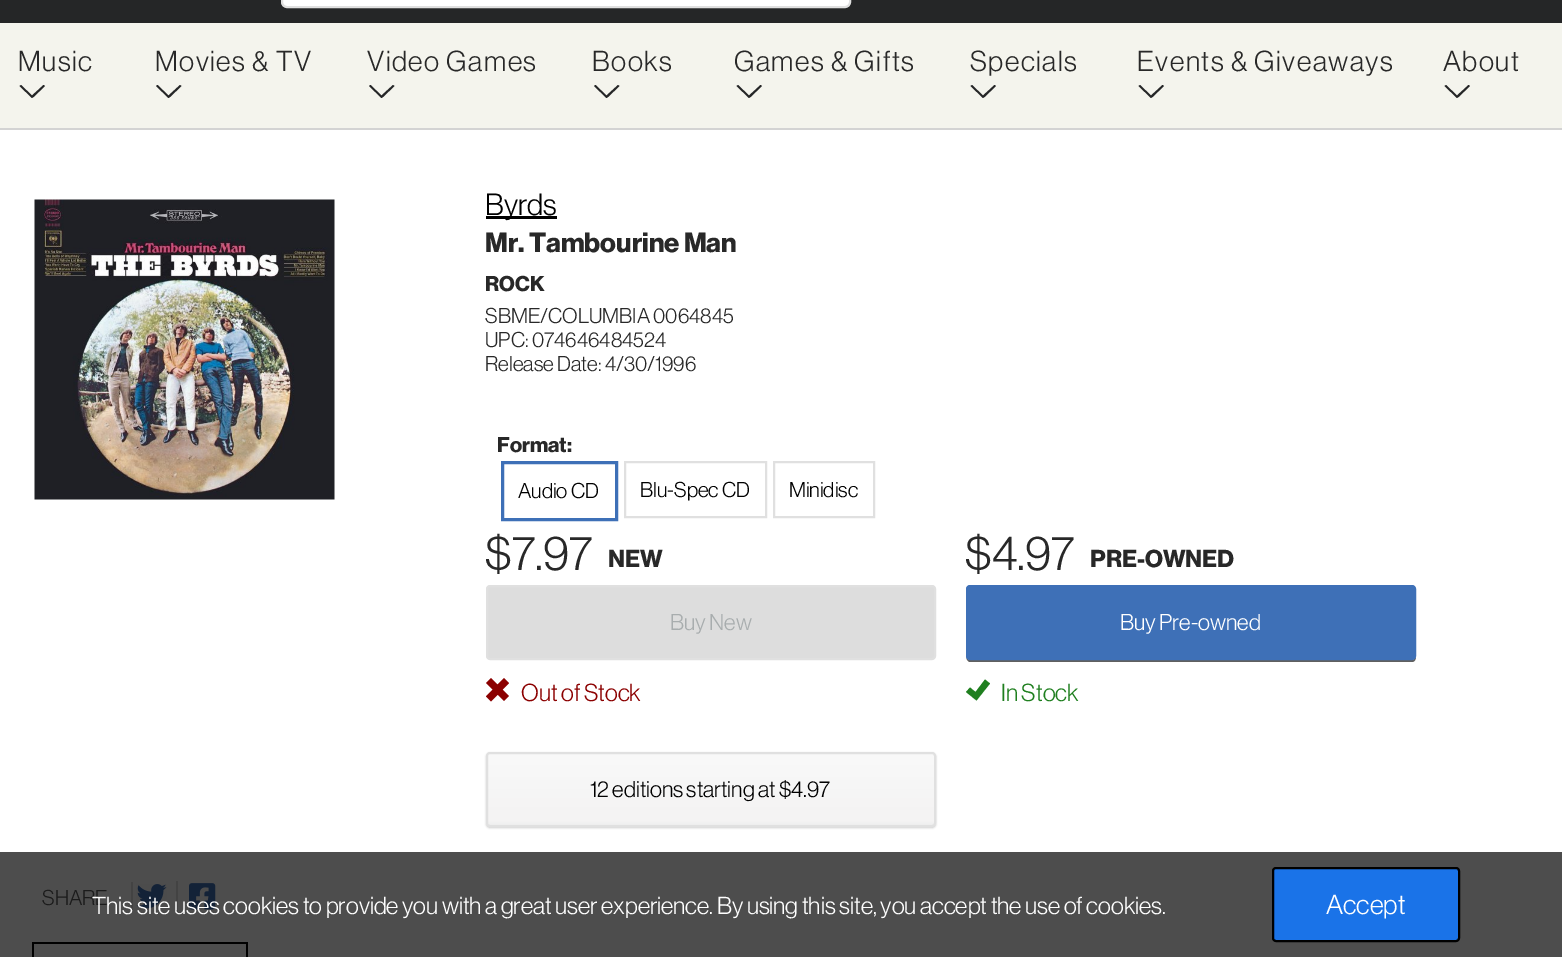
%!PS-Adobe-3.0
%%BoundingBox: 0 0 1562 957
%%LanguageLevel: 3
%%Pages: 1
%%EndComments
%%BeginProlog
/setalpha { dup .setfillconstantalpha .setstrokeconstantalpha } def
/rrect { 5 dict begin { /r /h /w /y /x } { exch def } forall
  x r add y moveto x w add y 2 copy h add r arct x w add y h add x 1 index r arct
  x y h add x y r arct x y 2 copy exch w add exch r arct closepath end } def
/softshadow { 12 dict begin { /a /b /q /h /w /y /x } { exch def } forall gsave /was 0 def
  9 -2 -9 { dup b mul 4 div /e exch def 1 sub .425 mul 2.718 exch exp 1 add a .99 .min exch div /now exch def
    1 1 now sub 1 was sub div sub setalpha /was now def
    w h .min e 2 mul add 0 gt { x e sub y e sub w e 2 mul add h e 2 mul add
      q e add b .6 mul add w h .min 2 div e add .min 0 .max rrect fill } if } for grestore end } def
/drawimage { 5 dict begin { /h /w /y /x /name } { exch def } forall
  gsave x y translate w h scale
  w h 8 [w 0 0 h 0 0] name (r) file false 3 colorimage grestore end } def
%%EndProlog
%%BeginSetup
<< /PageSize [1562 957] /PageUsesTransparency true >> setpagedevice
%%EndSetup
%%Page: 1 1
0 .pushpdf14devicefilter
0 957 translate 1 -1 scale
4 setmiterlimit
1 setgray
0 0 1562 957 rectfill
0.302 setgray
0 852 1562 105 rectfill
0.145 0.149 0.153 setrgbcolor
0 0 1562 23 rectfill
1 setgray
282 -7 568 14 5 rrect gsave fill grestore
0.878 setgray
2 setlinewidth
stroke
0.957 0.957 0.929 setrgbcolor
0 23 1562 105 rectfill
0.145 0.149 0.153 setrgbcolor
newpath 33.5 97 moveto 45 86 lineto 43.5 85 lineto 32 95.5 lineto 21 85 lineto 19.5 86 lineto 32 98 lineto closepath fill
newpath 170 97 moveto 181.5 86 lineto 180 85 lineto 168.5 95.5 lineto 157.5 85 lineto 156 86 lineto 168.5 98 lineto closepath fill
newpath 383 97 moveto 394.5 86 lineto 393 85 lineto 381.5 95.5 lineto 370.5 85 lineto 369 86 lineto 381.5 98 lineto closepath fill
newpath 608 97 moveto 619.5 86 lineto 618 85 lineto 606.5 95.5 lineto 595.5 85 lineto 594 86 lineto 606.5 98 lineto closepath fill
newpath 750.5 97 moveto 762 86 lineto 760.5 85 lineto 749 95.5 lineto 738 85 lineto 736.5 86 lineto 749 98 lineto closepath fill
newpath 984.5 97 moveto 996 86 lineto 994.5 85 lineto 983 95.5 lineto 972 85 lineto 970.5 86 lineto 983 98 lineto closepath fill
newpath 1152.5 97 moveto 1164 86 lineto 1162.5 85 lineto 1151 95.5 lineto 1140 85 lineto 1138.5 86 lineto 1151 98 lineto closepath fill
newpath 1458.5 97 moveto 1470 86 lineto 1468.5 85 lineto 1457 95.5 lineto 1446 85 lineto 1444.5 86 lineto 1457 98 lineto closepath fill
0.827 setgray
0 128 1562 2 rectfill
(images/1.raw) 34 199 301 301 drawimage
0 setgray
486 216 71 3 rectfill
0.243 0.439 0.718 setrgbcolor
3 setlinewidth
502.5 462.5 114 57 rectstroke
0.878 setgray
2 setlinewidth
625 462 141 55 rectstroke
774 462 100 55 rectstroke
0.867 setgray
487 586 448 73 3 rrect gsave fill grestore
0.878 setgray
stroke
0.376 setgray
newpath 966 656 moveto 967 660 lineto 969 662 lineto 1412 662 lineto 1415 662 1416 659 1416 656 curveto 1416 658 1414 660 1412 660 curveto 970 660 lineto 968 660 966 658 966 656 curveto closepath fill
0.243 0.439 0.718 setrgbcolor
967 586 448 73 3 rrect gsave fill grestore
stroke
0.545 0 0 setrgbcolor
newpath 491 701.5 moveto 486 696.5 lineto 504 678 lineto 509 683 lineto closepath 486 683 moveto 491 678 lineto 509 696 lineto 504 701 lineto closepath fill
0.122 0.498 0.122 setrgbcolor
newpath 975.5 692 moveto 985 679.5 lineto 990 683.5 lineto 976.5 700.5 lineto 966 692 lineto 970 687.5 lineto closepath fill
0.804 setgray
486 753 450 75 4 1 1 softshadow
gsave
486 752 450 75 4 rrect clip newpath
gsave newpath 486 753 moveto 936 753 lineto 936 825 lineto 486 825 lineto closepath clip newpath
<< /ShadingType 2 /ColorSpace /DeviceRGB /Coords [711 753 711 825] /Extend [true true] /Function << /FunctionType 3 /Domain [0 1] /Functions [<< /FunctionType 2 /Domain [0 1] /C0 [0.976 0.976 0.976] /C1 [0.957 0.953 0.953] /N 1 >> << /FunctionType 2 /Domain [0 1] /C0 [0.957 0.953 0.953] /C1 [0.933 0.933 0.933] /N 1 >>] /Bounds [0.94] /Encode [0 1 0 1] >> >> shfill grestore
grestore
0.878 setgray
487 753 448 73 3 rrect stroke
0.263 setgray
131 882 2 30 rectfill
(images/2.raw) 136 884 31 25 drawimage
176 881 2 33 rectfill
(images/3.raw) 189 883 27 27 drawimage
0 setgray
32 942 216 2 rectfill
246 942 2 15 rectfill
32 942 2 15 rectfill
0.102 0.451 0.91 setrgbcolor
1273 868 186 73 3 rrect gsave fill grestore
0 setgray
stroke
/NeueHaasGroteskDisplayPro-Regular [28.25 0 0 -28.25 0 0] selectfont
0.157 setgray
18 71 moveto 1.5 0 (Music) ashow
155 71 moveto 1.5 0 (Movies & TV) ashow
367 71 moveto 1.5 0 (Video Games) ashow
592 71 moveto 1.5 0 (Books) ashow
734 71 moveto 1.5 0 (Games & Gifts) ashow
970 71 moveto 1.5 0 (Specials) ashow
1137 71 moveto 1.5 0 (Events & Giveaways) ashow
1443 71 moveto 1.5 0 (About) ashow
/NeueHaasGroteskDisplayPro-Regular [30 0 0 -30 0 0] selectfont
0 setgray
485 215 moveto (Byrds) show
/NeueHaasGroteskDisplayPro-Bold [27.25 0 0 -27.25 0 0] selectfont
0.157 setgray
485 252 moveto (Mr. Tambourine Man) show
/NeueHaasGroteskDisplayPro-Bold [21 0 0 -21 0 0] selectfont
485 291 moveto (ROCK) show
/NeueHaasGroteskDisplayPro-Regular [21 0 0 -21 0 0] selectfont
485 323 moveto (SBME/COLUMBIA 0064845) show
485 347 moveto (UPC: 074646484524) show
485 371 moveto (Release Date: 4/30/1996) show
/NeueHaasGroteskDisplayPro-Bold [21 0 0 -21 0 0] selectfont
497 452 moveto (Format:) show
/NeueHaasGroteskDisplayPro-Regular [21 0 0 -21 0 0] selectfont
0 setgray
518 498 moveto (Audio CD) show
640 497 moveto (Blu-Spec CD) show
789 497 moveto (Minidisc) show
/NeueHaasGroteskDisplayPro-Regular [48 0 0 -48 0 0] selectfont
0.157 setgray
485 570 moveto ($7.97) show
/NeueHaasGroteskDisplayPro-Bold [24 0 0 -24 0 0] selectfont
608 567 moveto (NEW) show
/NeueHaasGroteskDisplayPro-Regular [48 0 0 -48 0 0] selectfont
965 570 moveto ($4.97) show
/NeueHaasGroteskDisplayPro-Bold [24 0 0 -24 0 0] selectfont
1090 567 moveto (PRE-OWNED) show
/NeueHaasGroteskDisplayPro-Regular [22.5 0 0 -22.5 0 0] selectfont
0.659 0.678 0.682 setrgbcolor
670 630 moveto (Buy New) show
1 setgray
1120 630 moveto (Buy Pre-owned) show
/NeueHaasGroteskDisplayPro-Regular [24 0 0 -24 0 0] selectfont
0.545 0 0 setrgbcolor
521 701 moveto (Out of Stock) show
0.122 0.498 0.122 setrgbcolor
1001 701 moveto (In Stock) show
/NeueHaasGroteskDisplayPro-Regular [22.5 0 0 -22.5 0 0] selectfont
0 setgray
590 797 moveto (12 editions starting at $4.97) show
/NeueHaasGroteskDisplayPro-Regular [21 0 0 -21 0 0] selectfont
0.106 setgray
42 905 moveto (SHARE) show
/NeueHaasGroteskDisplayPro-Regular [24 0 0 -24 0 0] selectfont
1 setgray
92 914 moveto (This site uses cookies to provide you with a great user experience. By using this site, you accept the use of cookies.) show
/NeueHaasGroteskDisplayPro-Regular [27 0 0 -27 0 0] selectfont
1326 914 moveto (Accept) show
.poppdf14devicefilter showpage
%%EOF
